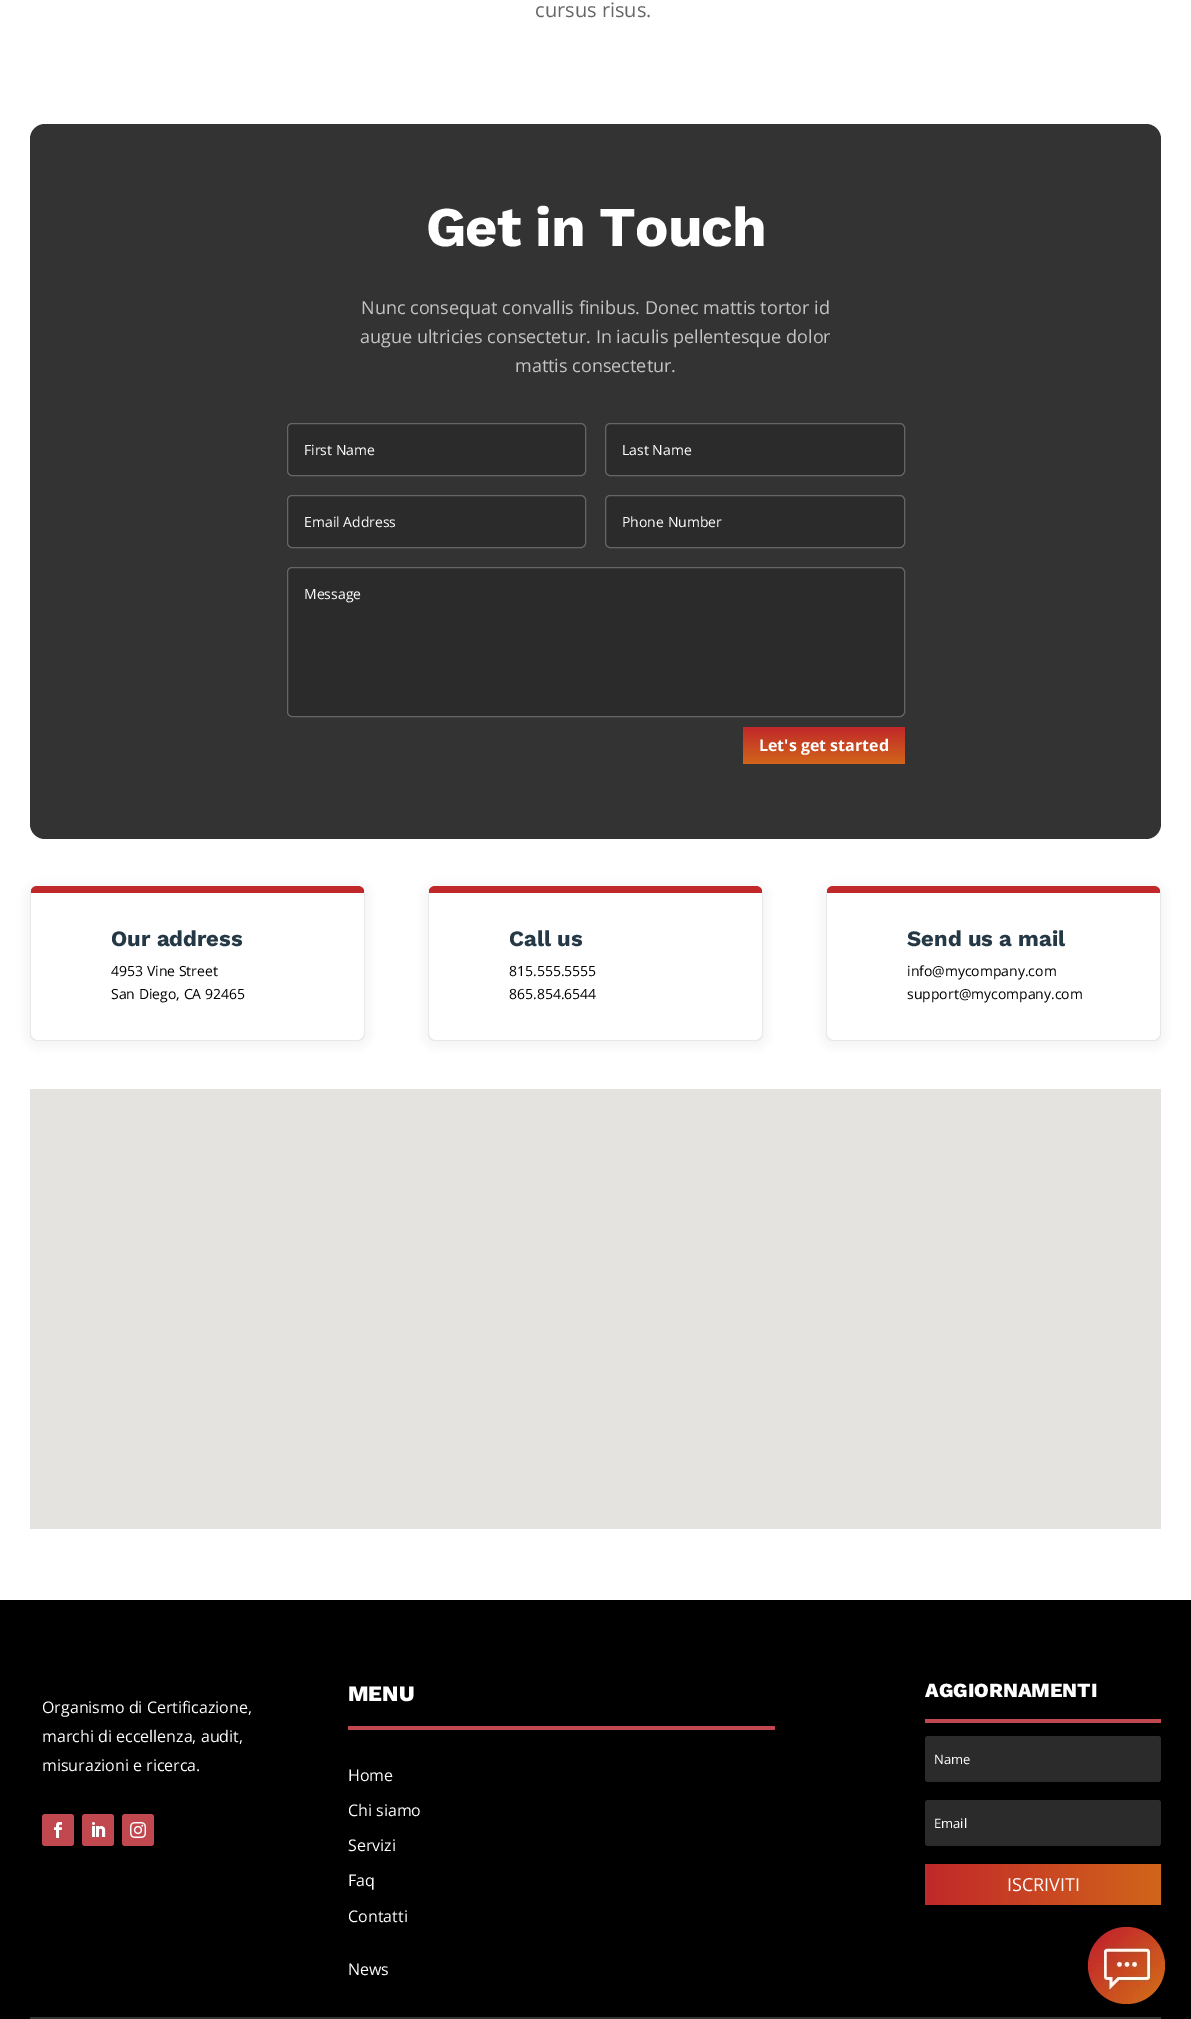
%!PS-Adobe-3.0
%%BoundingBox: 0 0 1191 2019
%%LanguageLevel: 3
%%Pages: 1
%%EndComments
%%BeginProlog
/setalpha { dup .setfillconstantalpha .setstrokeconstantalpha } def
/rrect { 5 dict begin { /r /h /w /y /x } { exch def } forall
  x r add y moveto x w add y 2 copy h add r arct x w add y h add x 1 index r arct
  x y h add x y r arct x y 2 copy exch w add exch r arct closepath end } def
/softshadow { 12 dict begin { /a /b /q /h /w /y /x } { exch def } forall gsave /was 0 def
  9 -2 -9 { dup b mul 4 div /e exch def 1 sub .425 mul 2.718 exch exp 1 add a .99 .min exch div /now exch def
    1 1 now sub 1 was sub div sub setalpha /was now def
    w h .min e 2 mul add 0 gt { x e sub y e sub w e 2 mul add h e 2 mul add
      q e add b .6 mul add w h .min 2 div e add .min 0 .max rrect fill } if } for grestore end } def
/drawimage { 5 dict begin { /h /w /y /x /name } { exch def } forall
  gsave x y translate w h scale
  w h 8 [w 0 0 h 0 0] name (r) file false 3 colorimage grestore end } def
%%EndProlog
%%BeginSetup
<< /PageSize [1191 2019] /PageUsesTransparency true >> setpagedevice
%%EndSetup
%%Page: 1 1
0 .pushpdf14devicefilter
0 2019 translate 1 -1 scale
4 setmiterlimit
1 setgray
0 0 1191 2019 rectfill
0.2 setgray
30 124 1131 715 15 rrect fill
0.169 setgray
287.5 423.5 298 52 4.5 rrect gsave fill grestore
0.4 setgray
stroke
0.169 setgray
605.5 423.5 299 52 4.5 rrect gsave fill grestore
0.4 setgray
stroke
0.169 setgray
287.5 495.5 298 52 4.5 rrect gsave fill grestore
0.4 setgray
stroke
0.169 setgray
605.5 495.5 299 52 4.5 rrect gsave fill grestore
0.4 setgray
stroke
0.169 setgray
287.5 567.5 617 149 4.5 rrect gsave fill grestore
0.4 setgray
stroke
gsave 743 727 162 37 3 rrect clip newpath
<< /ShadingType 2 /ColorSpace /DeviceRGB /Coords [824 727 824 764] /Extend [true true] /Function << /FunctionType 2 /Domain [0 1] /C0 [0.757 0.157 0.165] /C1 [0.82 0.396 0.102] /N 1 >> >> shfill grestore
gsave
newpath 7 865 moveto 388 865 lineto 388 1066 lineto 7 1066 lineto closepath 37 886 moveto 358 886 lineto 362 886 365 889 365 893 curveto 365 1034 lineto 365 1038 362 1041 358 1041 curveto 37 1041 lineto 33 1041 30 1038 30 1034 curveto 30 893 lineto 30 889 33 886 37 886 curveto closepath eoclip newpath
0.537 setgray
25 883 345 165 12 5.5 0.1 softshadow
grestore
0.757 0.157 0.165 setrgbcolor
newpath 37 886 moveto 34 886 32 888 31 890 curveto 31 893 lineto 364 893 lineto 364 890 lineto 363 888 361 886 358 886 curveto closepath fill
0.91 setgray
newpath 365 1034 moveto 365 893 lineto 364 890 lineto 364 893 lineto 364 1034 lineto 364 1036 363 1037 362 1038 curveto 363 1039 lineto 364 1038 365 1036 365 1034 curveto closepath fill
newpath 37 1041 moveto 358 1041 lineto 360 1041 362 1040 363 1039 curveto 362 1038 lineto 361 1039 360 1040 358 1040 curveto 36 1040 lineto 33 1038 lineto 32 1039 lineto 33 1040 35 1041 37 1041 curveto closepath fill
newpath 30 893 moveto 30 1034 lineto 30 1036 31 1038 32 1039 curveto 33 1038 lineto 32 1037 31 1036 31 1034 curveto 31 893 lineto 31 890 lineto closepath fill
gsave
newpath 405 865 moveto 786 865 lineto 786 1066 lineto 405 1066 lineto closepath 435 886 moveto 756 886 lineto 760 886 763 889 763 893 curveto 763 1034 lineto 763 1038 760 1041 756 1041 curveto 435 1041 lineto 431 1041 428 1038 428 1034 curveto 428 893 lineto 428 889 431 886 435 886 curveto closepath eoclip newpath
0.537 setgray
423 883 345 165 12 5.5 0.1 softshadow
grestore
0.757 0.157 0.165 setrgbcolor
newpath 435 886 moveto 432 886 430 888 429 890 curveto 429 893 lineto 762 893 lineto 762 890 lineto 761 888 759 886 756 886 curveto closepath fill
0.91 setgray
newpath 763 1034 moveto 763 893 lineto 762 890 lineto 762 893 lineto 762 1034 lineto 762 1036 761 1037 760 1038 curveto 761 1039 lineto 762 1038 763 1036 763 1034 curveto closepath fill
newpath 435 1041 moveto 756 1041 lineto 758 1041 760 1040 761 1039 curveto 760 1038 lineto 757 1040 lineto 435 1040 lineto 433 1040 432 1039 431 1038 curveto 430 1039 lineto 431 1040 433 1041 435 1041 curveto closepath fill
newpath 428 893 moveto 428 1034 lineto 428 1036 429 1038 430 1039 curveto 431 1038 lineto 430 1037 429 1036 429 1034 curveto 429 893 lineto 429 890 lineto closepath fill
gsave
newpath 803 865 moveto 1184 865 lineto 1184 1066 lineto 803 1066 lineto closepath 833 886 moveto 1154 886 lineto 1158 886 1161 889 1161 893 curveto 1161 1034 lineto 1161 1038 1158 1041 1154 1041 curveto 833 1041 lineto 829 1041 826 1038 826 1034 curveto 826 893 lineto 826 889 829 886 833 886 curveto closepath eoclip newpath
0.537 setgray
821 883 345 165 12 5.5 0.1 softshadow
grestore
0.757 0.157 0.165 setrgbcolor
newpath 833 886 moveto 830 886 828 888 827 890 curveto 827 893 lineto 1160 893 lineto 1160 890 lineto 1159 888 1157 886 1154 886 curveto closepath fill
0.91 setgray
newpath 1161 1034 moveto 1161 893 lineto 1160 890 lineto 1160 893 lineto 1160 1034 lineto 1160 1036 1159 1037 1158 1038 curveto 1159 1039 lineto 1160 1038 1161 1036 1161 1034 curveto closepath fill
newpath 833 1041 moveto 1154 1041 lineto 1156 1041 1158 1040 1159 1039 curveto 1158 1038 lineto 1157 1039 1156 1040 1154 1040 curveto 832 1040 lineto 829 1038 lineto 828 1039 lineto 829 1040 831 1041 833 1041 curveto closepath fill
newpath 826 893 moveto 826 1034 lineto 826 1036 827 1038 828 1039 curveto 829 1038 lineto 828 1037 827 1036 827 1034 curveto 827 893 lineto 827 890 lineto closepath fill
0.898 0.89 0.875 setrgbcolor
30 1089 1131 440 rectfill
0 setgray
0 1600 1191 419 rectfill
0.757 0.282 0.31 setrgbcolor
42 1814 32 32 3 rrect fill
(images/1.raw) 54 1822 8 16 drawimage
82 1814 32 32 3 rrect fill
(images/2.raw) 92 1822 14 15 drawimage
122 1814 32 32 3 rrect fill
(images/3.raw) 130 1822 16 16 drawimage
348 1726 427 4 rectfill
925 1719 236 4 rectfill
0.169 setgray
925 1736 236 46 3 rrect fill
925 1800 236 46 3 rrect fill
gsave 925 1864 236 41 3 rrect clip newpath
<< /ShadingType 2 /ColorSpace /DeviceRGB /Coords [925 1885 1161 1885] /Extend [true true] /Function << /FunctionType 2 /Domain [0 1] /C0 [0.757 0.157 0.165] /C1 [0.82 0.396 0.102] /N 1 >> >> shfill grestore
0.2 setgray
30 2017 1131 2 rectfill
(images/4.raw) 1088 1927 77 77 drawimage
/OpenSans-Regular [20 0 0 -20 0 0] selectfont
0.4 setgray
535 17 moveto (cursus risus.) show
/WorkSans-Bold [56 0 0 -56 0 0] selectfont
1 setgray
426 246 moveto -1 0 (Get in Touch) ashow
/OpenSans-Regular [18 0 0 -18 0 0] selectfont
0.769 setgray
361 314 moveto (Nunc consequat convallis finibus. Donec mattis tortor id) show
360 343 moveto (augue ultricies consectetur. In iaculis pellentesque dolor) show
515 372 moveto (mattis consectetur.) show
/OpenSans-Regular [14 0 0 -14 0 0] selectfont
1 setgray
304 455 moveto (First Name) show
622 455 moveto (Last Name) show
304 527 moveto (Email Address) show
622 527 moveto (Phone Number) show
304 599 moveto (Message) show
/OpenSans-Bold [16 0 0 -16 0 0] selectfont
759 751 moveto (Let's get started) show
/WorkSans-Bold [22 0 0 -22 0 0] selectfont
0.145 0.22 0.271 setrgbcolor
111 946 moveto (Our address) show
/OpenSans-Regular [14 0 0 -14 0 0] selectfont
0 setgray
111 976 moveto (4953 Vine Street) show
111 999 moveto (San Diego, CA 92465) show
/WorkSans-Bold [22 0 0 -22 0 0] selectfont
0.145 0.22 0.271 setrgbcolor
509 946 moveto (Call us) show
/OpenSans-Regular [14 0 0 -14 0 0] selectfont
0 setgray
509 976 moveto (815.555.5555) show
509 999 moveto (865.854.6544) show
/WorkSans-Bold [22 0 0 -22 0 0] selectfont
0.145 0.22 0.271 setrgbcolor
907 946 moveto (Send us a mail) show
/OpenSans-Regular [14 0 0 -14 0 0] selectfont
0 setgray
907 976 moveto (info@mycompany.com) show
907 999 moveto (support@mycompany.com) show
/OpenSans-Regular [16 0 0 -16 0 0] selectfont
1 setgray
42 1713 moveto (Organismo di Certificazione,) show
42 1742 moveto (marchi di eccellenza, audit,) show
42 1771 moveto (misurazioni e ricerca.) show
/WorkSans-ExtraBold [22 0 0 -22 0 0] selectfont
348 1701 moveto (MENU) show
/OpenSans-Regular [16 0 0 -16 0 0] selectfont
348 1781 moveto (Home) show
348 1816 moveto (Chi siamo) show
348 1851 moveto (Servizi) show
348 1886 moveto (Faq) show
348 1922 moveto (Contatti) show
348 1975 moveto (News) show
/WorkSans-ExtraBold [20 0 0 -20 0 0] selectfont
925 1697 moveto (AGGIORNAMENTI) show
/OpenSans-Regular [13 0 0 -13 0 0] selectfont
934 1764 moveto (Name) show
934 1828 moveto (Email) show
/OpenSans-Regular [18 0 0 -18 0 0] selectfont
1007 1891 moveto (ISCRIVITI) show
.poppdf14devicefilter showpage
%%EOF
